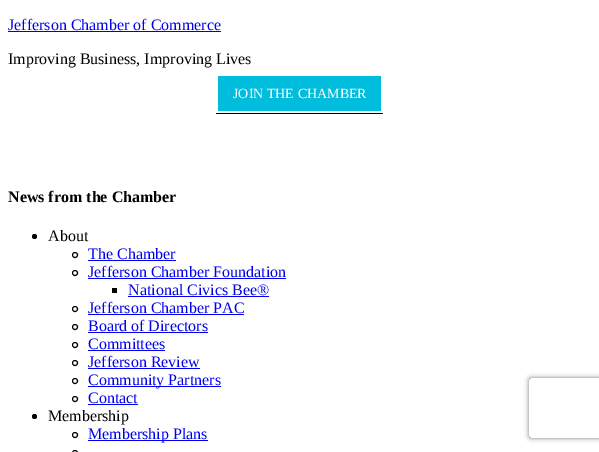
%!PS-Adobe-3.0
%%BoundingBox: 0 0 599 452
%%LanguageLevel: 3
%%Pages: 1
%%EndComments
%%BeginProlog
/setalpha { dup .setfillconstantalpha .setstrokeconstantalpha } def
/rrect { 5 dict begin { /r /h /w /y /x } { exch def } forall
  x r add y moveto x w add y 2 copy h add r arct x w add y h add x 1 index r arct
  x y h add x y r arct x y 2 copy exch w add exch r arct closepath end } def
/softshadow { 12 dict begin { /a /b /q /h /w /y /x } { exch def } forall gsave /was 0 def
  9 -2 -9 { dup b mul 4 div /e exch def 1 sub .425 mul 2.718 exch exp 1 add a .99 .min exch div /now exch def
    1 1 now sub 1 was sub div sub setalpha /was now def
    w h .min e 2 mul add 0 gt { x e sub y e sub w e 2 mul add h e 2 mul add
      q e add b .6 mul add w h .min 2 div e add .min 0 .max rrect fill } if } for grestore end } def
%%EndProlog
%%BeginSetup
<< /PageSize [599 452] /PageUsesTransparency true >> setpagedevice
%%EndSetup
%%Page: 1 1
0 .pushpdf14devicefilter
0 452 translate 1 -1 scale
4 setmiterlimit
1 setgray
0 0 599 452 rectfill
0 0 0.933 setrgbcolor
8 31 213 1 rectfill
0 setgray
216 113 167 1 rectfill
0 0.741 0.867 setrgbcolor
218 76 163 35 rectfill
0 setgray
newpath 34.5 236.5 2.5 0 360 arc closepath fill
newpath 75 255 2.5 0 360 arc closepath stroke
0 0 0.933 setrgbcolor
88 260 88 1 rectfill
0 setgray
newpath 75 273 2.5 0 360 arc closepath stroke
0 0 0.933 setrgbcolor
88 278 198 1 rectfill
0 setgray
112 288 5 5 rectfill
0 0 0.933 setrgbcolor
128 296 141 1 rectfill
0 setgray
newpath 75 309 2.5 0 360 arc closepath stroke
0 0 0.933 setrgbcolor
88 314 156 1 rectfill
0 setgray
newpath 75 327 2.5 0 360 arc closepath stroke
0 0 0.933 setrgbcolor
88 332 120 1 rectfill
0 setgray
newpath 75 345 2.5 0 360 arc closepath stroke
0 0 0.933 setrgbcolor
88 350 77 1 rectfill
0 setgray
newpath 75 363 2.5 0 360 arc closepath stroke
0 0 0.933 setrgbcolor
88 368 112 1 rectfill
0 setgray
newpath 75 381 2.5 0 360 arc closepath stroke
0 0 0.933 setrgbcolor
88 386 133 1 rectfill
0 setgray
newpath 75 399 2.5 0 360 arc closepath stroke
0 0 0.933 setrgbcolor
88 404 50 1 rectfill
0 setgray
newpath 34.5 416.5 2.5 0 360 arc closepath fill
newpath 75 435 2.5 0 360 arc closepath stroke
0 0 0.933 setrgbcolor
88 440 120 1 rectfill
0 setgray
newpath 75 453 2.5 0 360 arc closepath stroke
gsave
newpath 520 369 moveto 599 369 lineto 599 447 lineto 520 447 lineto closepath 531 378 moveto 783 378 lineto 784 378 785 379 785 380 curveto 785 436 lineto 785 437 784 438 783 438 curveto 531 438 lineto 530 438 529 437 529 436 curveto 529 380 lineto 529 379 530 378 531 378 curveto closepath eoclip newpath
0.502 setgray
529 378 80 60 2 2.5 1 softshadow
grestore
/LiberationSerif-Regular [16 0 0 -16 0 0] selectfont
0 0 0.933 setrgbcolor
8 30 moveto (Jefferson Chamber of Commerce) show
0 setgray
8 64 moveto (Improving Business, Improving Lives) show
/LiberationSerif-Regular [14 0 0 -14 0 0] selectfont
1 setgray
233 98 moveto (JOIN THE CHAMBER) show
/LiberationSerif-Bold [16 0 0 -16 0 0] selectfont
0 setgray
8 202 moveto (News from the Chamber) show
/LiberationSerif-Regular [16 0 0 -16 0 0] selectfont
48 241 moveto (About) show
0 0 0.933 setrgbcolor
88 259 moveto (The Chamber) show
88 277 moveto (Jefferson Chamber Foundation) show
128 295 moveto (National Civics Bee®) show
88 313 moveto (Jefferson Chamber PAC) show
88 331 moveto (Board of Directors) show
88 349 moveto (Committees) show
88 367 moveto (Jefferson Review) show
88 385 moveto (Community Partners) show
88 403 moveto (Contact) show
0 setgray
48 421 moveto (Membership) show
0 0 0.933 setrgbcolor
88 439 moveto (Membership Plans) show
.poppdf14devicefilter showpage
%%EOF
